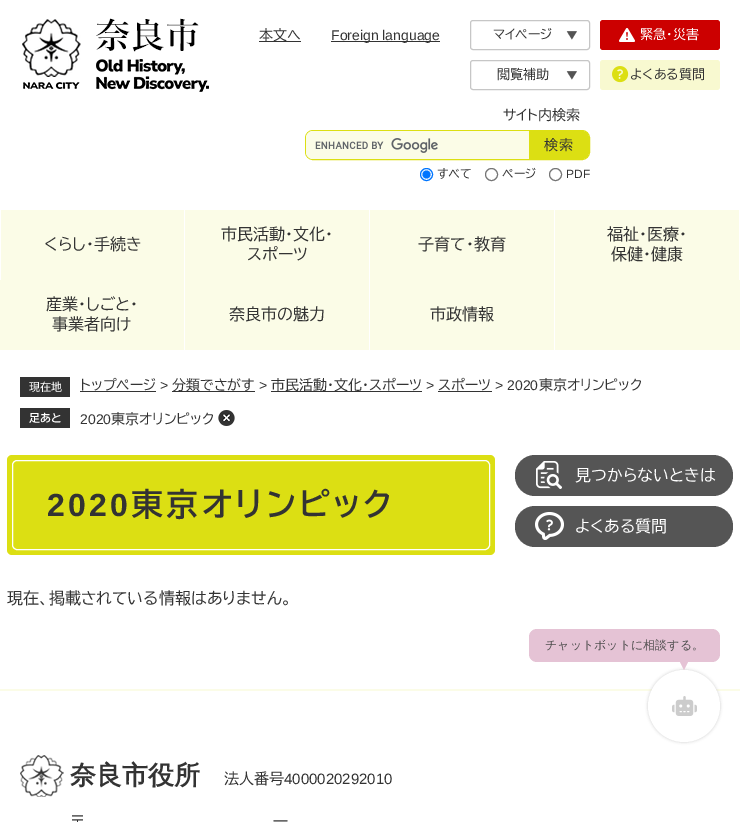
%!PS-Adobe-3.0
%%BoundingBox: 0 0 740 822
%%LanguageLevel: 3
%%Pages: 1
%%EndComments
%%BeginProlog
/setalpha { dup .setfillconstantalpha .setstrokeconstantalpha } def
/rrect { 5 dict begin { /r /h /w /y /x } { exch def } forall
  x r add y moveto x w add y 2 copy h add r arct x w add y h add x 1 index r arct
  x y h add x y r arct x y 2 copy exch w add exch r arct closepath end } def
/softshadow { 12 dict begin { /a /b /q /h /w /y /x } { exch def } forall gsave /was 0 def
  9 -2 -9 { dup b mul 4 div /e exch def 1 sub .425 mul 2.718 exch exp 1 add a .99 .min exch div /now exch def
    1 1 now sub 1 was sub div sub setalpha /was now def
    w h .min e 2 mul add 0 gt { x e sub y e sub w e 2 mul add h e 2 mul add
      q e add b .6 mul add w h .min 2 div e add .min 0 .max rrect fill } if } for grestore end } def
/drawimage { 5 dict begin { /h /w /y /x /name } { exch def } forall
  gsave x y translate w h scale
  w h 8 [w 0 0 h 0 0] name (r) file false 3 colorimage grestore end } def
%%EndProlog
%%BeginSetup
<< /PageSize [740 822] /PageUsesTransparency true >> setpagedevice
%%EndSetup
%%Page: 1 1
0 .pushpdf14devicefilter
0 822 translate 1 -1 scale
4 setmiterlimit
1 setgray
0 0 740 822 rectfill
(images/1.raw) 22 18 187 74 drawimage
0.2 setgray
259 41 42 1 rectfill
331 41 109 1 rectfill
(images/2.raw) 566 31 11 9 drawimage
0.776 setgray
470.5 20.5 119 29 2.5 rrect stroke
(images/2.raw) 566 71 11 9 drawimage
470.5 60.5 119 29 2.5 rrect stroke
0.863 0.875 0.075 setrgbcolor
305.5 130.5 284 29 7.5 rrect stroke
0.984 0.988 0.906 setrgbcolor
newpath 313 131 moveto 529 131 lineto 529 159 lineto 313 159 lineto 309 159 306 156 306 152 curveto 306 138 lineto 306 134 309 131 313 131 curveto closepath fill
(images/3.raw) 315 138 123 15 drawimage
0.863 0.875 0.075 setrgbcolor
newpath 529 131 moveto 582 131 lineto 586 131 589 134 589 138 curveto 589 152 lineto 589 156 586 159 582 159 curveto 529 159 lineto closepath fill
0 0.459 1 setrgbcolor
newpath 426.5 174.5 6 0 360 arc closepath stroke
newpath 426.5 174.5 4 0 360 arc closepath fill
0.463 setgray
newpath 491.5 174.5 6 0 360 arc closepath stroke
newpath 555.5 174.5 6 0 360 arc closepath stroke
0.8 0 0 setrgbcolor
600 20 120 30 3 rrect fill
(images/4.raw) 619 28 16 14 drawimage
0.973 0.976 0.816 setrgbcolor
600 60 120 30 3 rrect fill
(images/5.raw) 612 66 17 17 drawimage
0.984 0.988 0.906 setrgbcolor
0 210 740 140 rectfill
1 setgray
184 210 1 140 rectfill
0 210 1 70 rectfill
369 210 1 140 rectfill
554 210 1 140 rectfill
739 210 1 70 rectfill
0.2 setgray
20 377 50 20 rectfill
80 391 76 1 rectfill
172 391 83 1 rectfill
271 391 151 1 rectfill
438 391 54 1 rectfill
20 408 50 20 rectfill
(images/6.raw) 218 410 17 16 drawimage
0.863 0.875 0.075 setrgbcolor
7 455 488 100 5 rrect fill
1 setgray
12.5 460.5 477 89 4.5 rrect stroke
0.333 setgray
515 455 218 41 20 rrect fill
(images/7.raw) 536 461 26 28 drawimage
515 506 218 41 20 rrect fill
(images/8.raw) 535 512 29 28 drawimage
0.984 0.988 0.906 setrgbcolor
0 689 740 2 rectfill
(images/9.raw) 20 755 44 42 drawimage
0.8 setgray
648 670 72 72 36 1.5 1 softshadow
1 setgray
newpath 684 706 36 0 360 arc closepath fill
0.898 0.765 0.835 setrgbcolor
529 629 191 33 8 rrect fill
newpath 680 662 moveto 688 662 lineto 684 670 lineto closepath fill
(images/10.raw) 672 696 25 20 drawimage
/BIZUDPGothic-Regular [14 0 0 -14 0 0] selectfont
0.2 setgray
259 40 moveto (本文へ) show
/LiberationSans-Regular [14 0 0 -14 0 0] selectfont
331 40 moveto (Foreign language) show
/BIZUDPGothic-Regular [13 0 0 -13 0 0] selectfont
493 39 moveto (マイページ) show
497 79 moveto (閲覧補助) show
/BIZUDPGothic-Regular [14 0 0 -14 0 0] selectfont
503 120 moveto (サイト内検索) show
544 150 moveto 1 0 (検索) ashow
/BIZUDPGothic-Regular [12 0 0 -12 0 0] selectfont
437 178 moveto (すべて) show
502 178 moveto (ページ) show
/LiberationSans-Regular [12 0 0 -12 0 0] selectfont
566 178 moveto (PDF) show
/BIZUDPGothic-Regular [13 0 0 -13 0 0] selectfont
1 setgray
640 39 moveto (緊急・災害) show
0.2 setgray
630 79 moveto (よくある質問) show
/BIZUDPGothic-Regular [16 0 0 -16 0 0] selectfont
44 250 moveto (くらし・手続き) show
221 240 moveto (市民活動・文化・) show
247 260 moveto (スポーツ) show
418 250 moveto (子育て・教育) show
607 240 moveto (福祉・医療・) show
611 260 moveto (保健・健康) show
46 310 moveto (産業・しごと・) show
52 330 moveto (事業者向け) show
229 320 moveto (奈良市の魅力) show
430 320 moveto (市政情報) show
/BIZUDPGothic-Regular [11 0 0 -11 0 0] selectfont
1 setgray
29 391 moveto (現在地) show
/BIZUDPGothic-Regular [14 0 0 -14 0 0] selectfont
0.2 setgray
80 390 moveto (トップページ) show
/LiberationSans-Regular [14 0 0 -14 0 0] selectfont
160 390 moveto (>) show
/BIZUDPGothic-Regular [14 0 0 -14 0 0] selectfont
172 390 moveto (分類でさがす) show
/LiberationSans-Regular [14 0 0 -14 0 0] selectfont
259 390 moveto (>) show
/BIZUDPGothic-Regular [14 0 0 -14 0 0] selectfont
271 390 moveto (市民活動・文化・スポーツ) show
/LiberationSans-Regular [14 0 0 -14 0 0] selectfont
426 390 moveto (>) show
/BIZUDPGothic-Regular [14 0 0 -14 0 0] selectfont
438 390 moveto (スポーツ) show
/LiberationSans-Regular [14 0 0 -14 0 0] selectfont
495 390 moveto (> 2020) show
/BIZUDPGothic-Regular [14 0 0 -14 0 0] selectfont
539 390 moveto (東京オリンピック) show
/BIZUDPGothic-Bold [11 0 0 -11 0 0] selectfont
1 setgray
29 422 moveto (足あと) show
/LiberationSans-Regular [14 0 0 -14 0 0] selectfont
0.2 setgray
80 424 moveto (2020) show
/BIZUDPGothic-Regular [14 0 0 -14 0 0] selectfont
111 424 moveto (東京オリンピック) show
/LiberationSans-Bold [32 0 0 -32 0 0] selectfont
47 516 moveto 3.25 0 (2020) ashow
/BIZUDPGothic-Bold [32 0 0 -32 0 0] selectfont
131 516 moveto 3.25 0 (東京オリンピック) ashow
/BIZUDPGothic-Regular [16 0 0 -16 0 0] selectfont
7 604 moveto (現在、掲載されている情報はありません。) show
1 setgray
575 481 moveto (見つからないときは) show
575 532 moveto (よくある質問) show
/WenQuanYiZenHei-Bold [26 0 0 -26 0 0] selectfont
0.2 setgray
70 784 moveto (奈良市役所) show
/BIZUDPGothic-Regular [15 0 0 -15 0 0] selectfont
224 784 moveto (法人番号) show
/LiberationSans-Regular [15 0 0 -15 0 0] selectfont
284 784 moveto (4000020292010) show
/BIZUDPGothic-Regular [15 0 0 -15 0 0] selectfont
70 827 moveto (〒) show
273 827 moveto (一) show
/WenQuanYiZenHei-Medium [12 0 0 -12 0 0] selectfont
0.302 setgray
545 649 moveto (チャットボットに相談する。) show
.poppdf14devicefilter showpage
%%EOF
